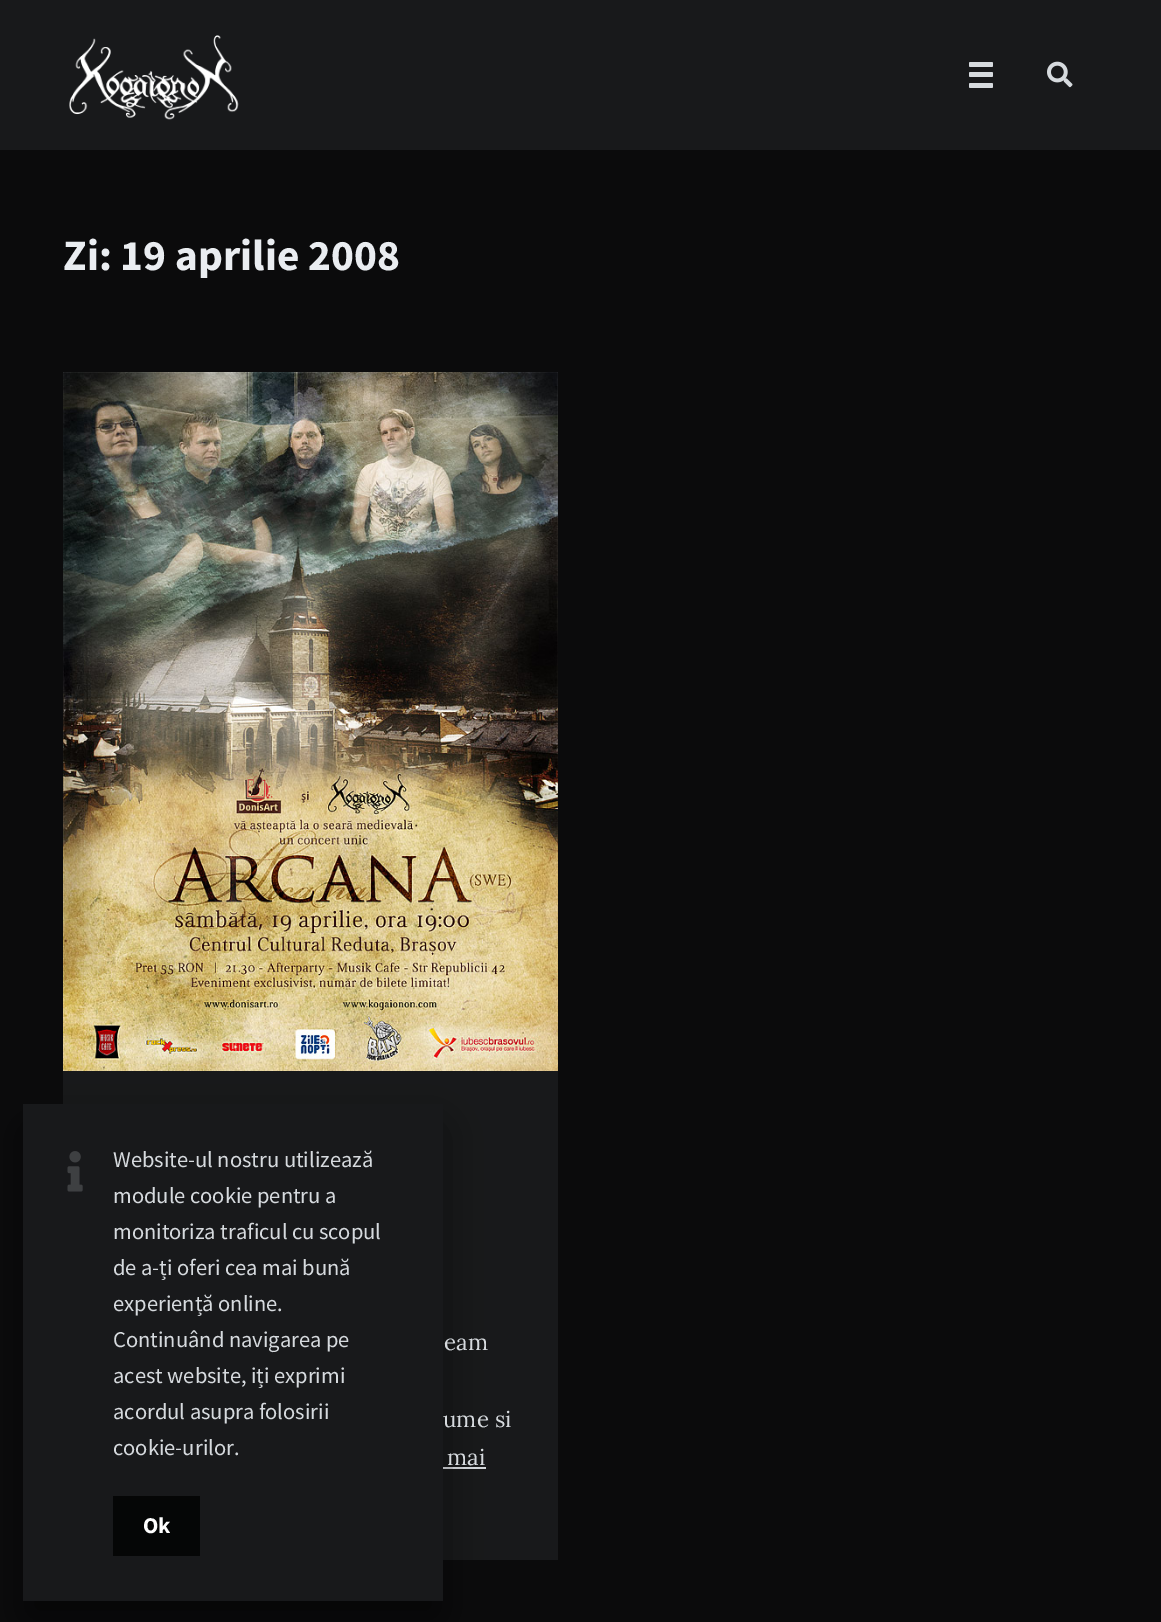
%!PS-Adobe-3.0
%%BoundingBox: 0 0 1161 1622
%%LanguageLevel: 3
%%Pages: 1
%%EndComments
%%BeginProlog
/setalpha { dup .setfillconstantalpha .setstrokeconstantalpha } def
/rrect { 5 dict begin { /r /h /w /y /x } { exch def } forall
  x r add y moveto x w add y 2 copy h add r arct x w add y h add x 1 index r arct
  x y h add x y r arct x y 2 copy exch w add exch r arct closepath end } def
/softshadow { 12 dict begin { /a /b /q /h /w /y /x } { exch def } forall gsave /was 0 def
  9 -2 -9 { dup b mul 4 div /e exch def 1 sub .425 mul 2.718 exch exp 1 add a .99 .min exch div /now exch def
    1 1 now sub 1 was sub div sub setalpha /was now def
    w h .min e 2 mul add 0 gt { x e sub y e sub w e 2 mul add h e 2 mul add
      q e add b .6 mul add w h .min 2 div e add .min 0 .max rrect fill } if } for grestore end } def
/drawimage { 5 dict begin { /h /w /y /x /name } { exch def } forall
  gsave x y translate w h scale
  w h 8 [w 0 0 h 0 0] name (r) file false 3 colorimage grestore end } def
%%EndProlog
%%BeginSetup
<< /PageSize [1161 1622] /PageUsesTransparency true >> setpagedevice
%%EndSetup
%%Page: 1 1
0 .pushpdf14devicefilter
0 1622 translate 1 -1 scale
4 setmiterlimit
0.043 0.043 0.047 setrgbcolor
0 0 1161 1622 rectfill
0.094 0.098 0.106 setrgbcolor
0 0 1161 150 rectfill
(images/1.raw) 69 35 170 85 drawimage
0.839 0.855 0.871 setrgbcolor
969 72 24 5 1.5 rrect fill
969 62 24 5 1.5 rrect fill
969 83 24 5 1.5 rrect fill
(images/2.raw) 1047 61 26 27 drawimage
0.094 0.098 0.106 setrgbcolor
63 1071 495 489 rectfill
(images/3.raw) 63 372 495 699 drawimage
0.839 0.855 0.871 setrgbcolor
443 1467 43 2 rectfill
0 setgray
29 1131 408 485 0 21 0.6 softshadow
0.094 0.098 0.106 setrgbcolor
23 1104 420 497 rectfill
(images/4.raw) 67 1151 16 41 drawimage
0.02 0.024 0.024 setrgbcolor
113 1496 87 60 rectfill
/SourceSansPro-Bold [43.5 0 0 -43.5 0 0] selectfont
0.918 0.929 0.945 setrgbcolor
63 270 moveto (Zi: 19 aprilie 2008) show
/Lora-Regular [22.5 0 0 -22.5 0 0] selectfont
0.839 0.855 0.871 setrgbcolor
444 1350 moveto (eam) show
443 1427 moveto (ume si) show
447 1465 moveto (mai) show
/SourceSansPro-Regular [22.5 0 0 -22.5 0 0] selectfont
113 1167 moveto (Website-ul nostru utilizează) show
113 1203 moveto (module cookie pentru a) show
113 1239 moveto (monitoriza traficul cu scopul) show
113 1275 moveto (de a-ți oferi cea mai bună) show
113 1311 moveto (experiență online.) show
113 1347 moveto (Continuând navigarea pe) show
113 1383 moveto (acest website, iți exprimi) show
113 1419 moveto (acordul asupra folosirii) show
113 1455 moveto (cookie-urilor.) show
/SourceSansPro-Bold [22.5 0 0 -22.5 0 0] selectfont
1 setgray
143 1533 moveto (Ok) show
.poppdf14devicefilter showpage
%%EOF
